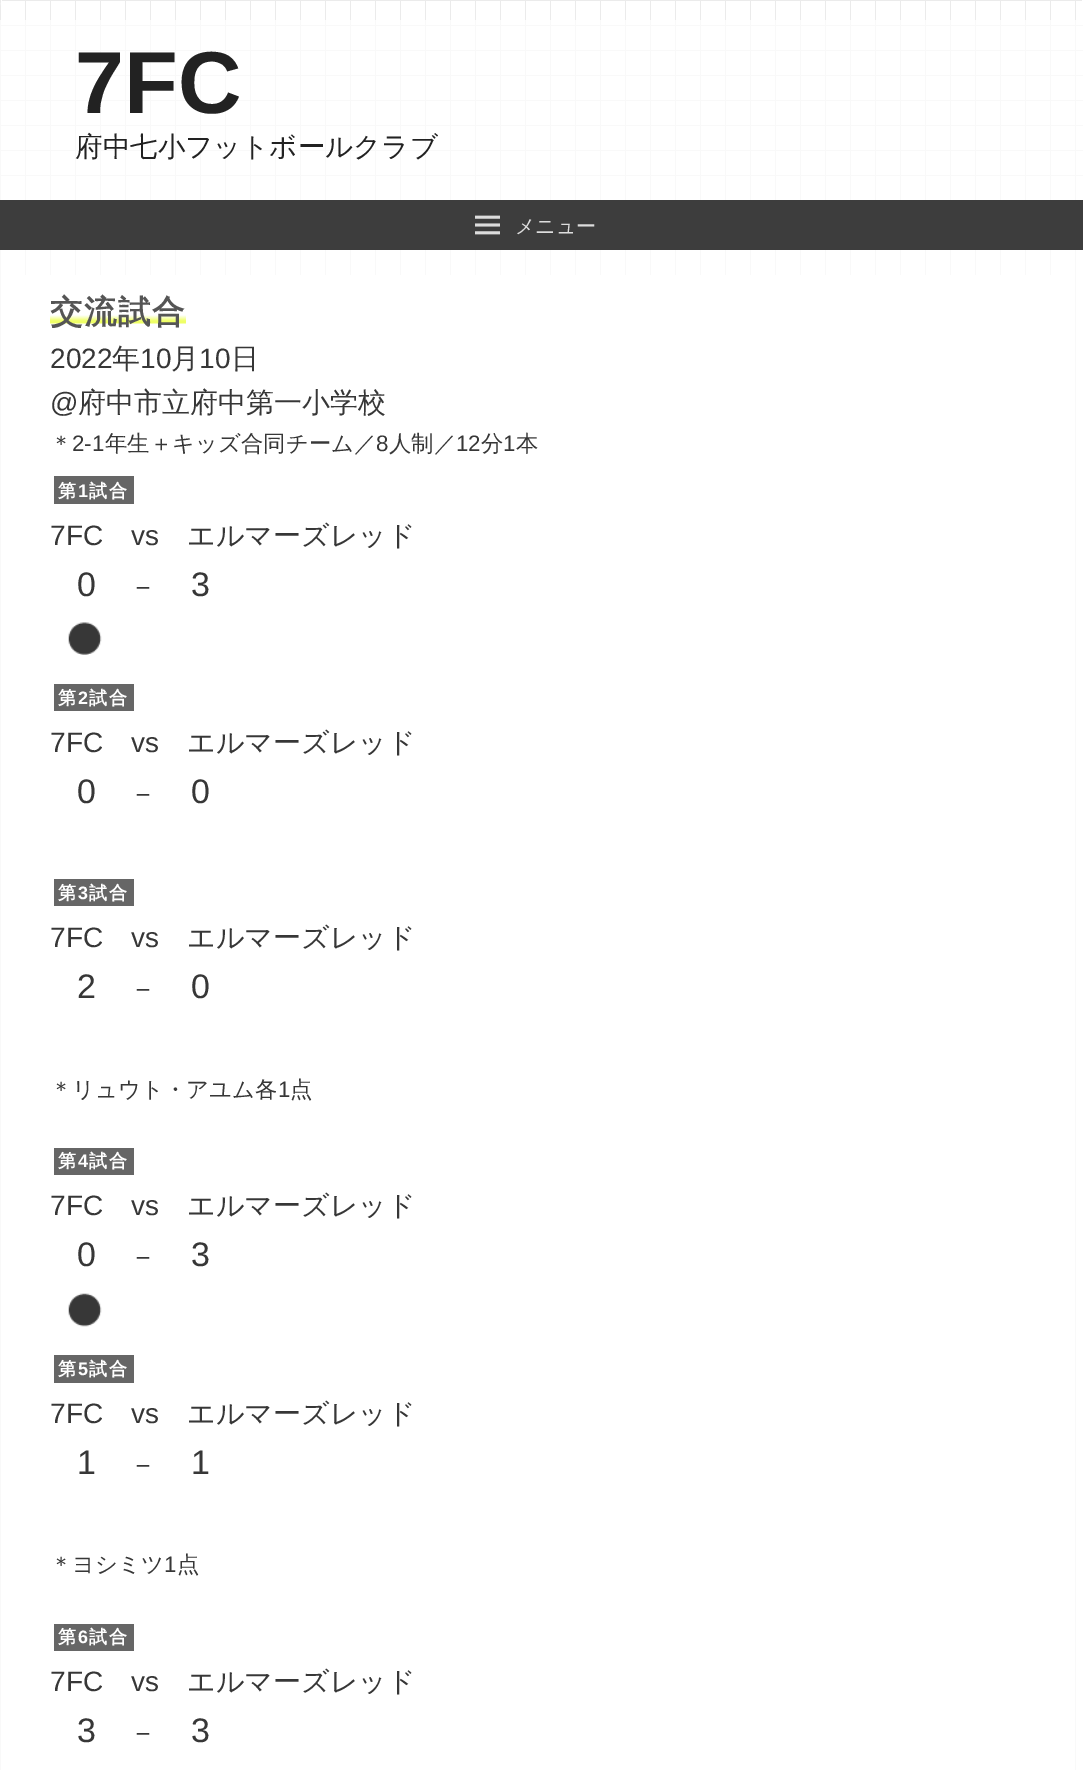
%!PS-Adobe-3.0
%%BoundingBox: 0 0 1083 1770
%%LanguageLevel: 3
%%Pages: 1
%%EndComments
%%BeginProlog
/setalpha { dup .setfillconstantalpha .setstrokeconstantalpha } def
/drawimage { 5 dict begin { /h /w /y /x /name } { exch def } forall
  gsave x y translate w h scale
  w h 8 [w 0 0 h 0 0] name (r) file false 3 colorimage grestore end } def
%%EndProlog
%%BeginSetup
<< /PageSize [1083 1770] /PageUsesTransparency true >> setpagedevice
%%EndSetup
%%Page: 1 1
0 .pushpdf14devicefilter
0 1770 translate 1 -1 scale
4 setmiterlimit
1 setgray
0 0 1083 1770 rectfill
(images/1.raw) 0 0 1076 1770 drawimage
newpath 6 0 moveto 1078 0 lineto 1081.5 0 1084 2.5 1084 6 curveto 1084 250 lineto 0 250 lineto 0 6 lineto 0 2.5 2.5 0 6 0 curveto closepath fill
(images/2.raw) 0 0 1076 200 drawimage
gsave
newpath 6 0 moveto 1078 0 lineto 1081.5 0 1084 2.5 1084 6 curveto 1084 250 lineto 0 250 lineto 0 6 lineto 0 2.5 2.5 0 6 0 curveto closepath clip newpath
0.922 setgray
0 0 1083 1 rectfill
grestore
0.922 setgray
0 25 1083 1 rectfill
0 50 1083 1 rectfill
0 75 1083 1 rectfill
0 100 1083 1 rectfill
0 125 1083 1 rectfill
0 150 1083 1 rectfill
0 175 1083 1 rectfill
0.7 setalpha
1 setgray
0 20 1083 180 rectfill
1 setalpha
0.239 setgray
0 200 1083 50 rectfill
(images/3.raw) 475 215 25 20 drawimage
0.7 setalpha
1 setgray
0 250 1076 1520 rectfill
1 setalpha
25 275 1026 1495 rectfill
gsave newpath 50 314 moveto 186 314 lineto 186 328 lineto 50 328 lineto closepath clip newpath
<< /ShadingType 2 /ColorSpace /DeviceRGB /Coords [118 280 118 336] /Extend [true true] /Function << /FunctionType 3 /Domain [0 1] /Functions [<< /FunctionType 2 /Domain [0 1] /C0 [1 1 1] /C1 [1 1 1] /N 1 >> << /FunctionType 2 /Domain [0 1] /C0 [1 1 1] /C1 [0.937 1 0.4] /N 1 >> << /FunctionType 2 /Domain [0 1] /C0 [0.937 1 0.4] /C1 [0.937 1 0.4] /N 1 >> << /FunctionType 2 /Domain [0 1] /C0 [0.937 1 0.4] /C1 [1 1 1] /N 1 >> << /FunctionType 2 /Domain [0 1] /C0 [1 1 1] /C1 [1 1 1] /N 1 >>] /Bounds [0.6 0.75 0.8 0.85] /Encode [0 1 0 1 0 1 0 1 0 1] >> >> shfill grestore
gsave newpath 50 314 moveto 186 314 lineto 186 328 lineto 50 328 lineto closepath clip newpath
<< /ShadingType 2 /ColorSpace /DeviceRGB /Coords [118 293 118 330] /Extend [true true] /Function << /FunctionType 3 /Domain [0 1] /Functions [<< /FunctionType 2 /Domain [0 1] /C0 [1 1 1] /C1 [1 1 1] /N 1 >> << /FunctionType 2 /Domain [0 1] /C0 [1 1 1] /C1 [0.937 1 0.4] /N 1 >> << /FunctionType 2 /Domain [0 1] /C0 [0.937 1 0.4] /C1 [0.937 1 0.4] /N 1 >> << /FunctionType 2 /Domain [0 1] /C0 [0.937 1 0.4] /C1 [1 1 1] /N 1 >> << /FunctionType 2 /Domain [0 1] /C0 [1 1 1] /C1 [1 1 1] /N 1 >>] /Bounds [0.6 0.75 0.8 0.85] /Encode [0 1 0 1 0 1 0 1 0 1] >> >> shfill grestore
0.4 setgray
54 476 80 28 rectfill
(images/4.raw) 68 622 34 33 drawimage
54 684 80 27 rectfill
54 879 80 27 rectfill
54 1148 80 27 rectfill
(images/5.raw) 68 1293 34 34 drawimage
54 1355 80 28 rectfill
54 1624 80 27 rectfill
/LiberationSans-Bold [88 0 0 -88 0 0] selectfont
0.133 setgray
75 113 moveto (7FC) show
/WenQuanYiZenHei-Medium [27.5 0 0 -27.5 0 0] selectfont
75 156 moveto (府中七小フットボールクラブ) show
/WenQuanYiZenHei-Medium [20 0 0 -20 0 0] selectfont
0.867 setgray
515 233 moveto (メニュー) show
/WenQuanYiZenHei-Bold [32.5 0 0 -32.5 0 0] selectfont
0.333 setgray
50 323 moveto 1.5 0 (交流試合) ashow
/LiberationSans-Regular [28 0 0 -28 0 0] selectfont
0.216 setgray
50 368 moveto (2022) show
/WenQuanYiZenHei-Medium [28 0 0 -28 0 0] selectfont
112 368 moveto (年) show
/LiberationSans-Regular [28 0 0 -28 0 0] selectfont
140 368 moveto (10) show
/WenQuanYiZenHei-Medium [28 0 0 -28 0 0] selectfont
171 368 moveto (月) show
/LiberationSans-Regular [28 0 0 -28 0 0] selectfont
199 368 moveto (10) show
/WenQuanYiZenHei-Medium [28 0 0 -28 0 0] selectfont
231 368 moveto (日) show
/LiberationSans-Regular [28 0 0 -28 0 0] selectfont
50 412 moveto (@) show
/WenQuanYiZenHei-Medium [28 0 0 -28 0 0] selectfont
78 412 moveto (府中市立府中第一小学校) show
/WenQuanYiZenHei-Medium [22.4 0 0 -22.4 0 0] selectfont
50 451 moveto (＊) show
/LiberationSans-Regular [22.4 0 0 -22.4 0 0] selectfont
72 451 moveto (2-1) show
/WenQuanYiZenHei-Medium [22.4 0 0 -22.4 0 0] selectfont
105 451 moveto (年生＋キッズ合同チーム／) show
/LiberationSans-Regular [22.4 0 0 -22.4 0 0] selectfont
376 451 moveto (8) show
/WenQuanYiZenHei-Medium [22.4 0 0 -22.4 0 0] selectfont
389 451 moveto (人制／) show
/LiberationSans-Regular [22.4 0 0 -22.4 0 0] selectfont
456 451 moveto (12) show
/WenQuanYiZenHei-Medium [22.4 0 0 -22.4 0 0] selectfont
481 451 moveto (分) show
/LiberationSans-Regular [22.4 0 0 -22.4 0 0] selectfont
503 451 moveto (1) show
/WenQuanYiZenHei-Medium [22.4 0 0 -22.4 0 0] selectfont
516 451 moveto (本) show
/WenQuanYiZenHei-Bold [18 0 0 -18 0 0] selectfont
1 setgray
58 497 moveto 2 0 (第) ashow
/LiberationSans-Bold [18 0 0 -18 0 0] selectfont
78 497 moveto 2 0 (1) ashow
/WenQuanYiZenHei-Bold [18 0 0 -18 0 0] selectfont
89 497 moveto 2 0 (試合) ashow
/LiberationSans-Regular [28 0 0 -28 0 0] selectfont
0.216 setgray
50 545 moveto (7FC) show
131 545 moveto (vs) show
/WenQuanYiZenHei-Medium [28 0 0 -28 0 0] selectfont
187 545 moveto (エルマーズレッド) show
/LiberationSans-Regular [34 0 0 -34 0 0] selectfont
77 596 moveto (0) show
/WenQuanYiZenHei-Medium [28 0 0 -28 0 0] selectfont
129 596 moveto (－) show
/LiberationSans-Regular [34 0 0 -34 0 0] selectfont
191 596 moveto (3) show
/WenQuanYiZenHei-Bold [18 0 0 -18 0 0] selectfont
1 setgray
58 704 moveto 2 0 (第) ashow
/LiberationSans-Bold [18 0 0 -18 0 0] selectfont
78 704 moveto 2 0 (2) ashow
/WenQuanYiZenHei-Bold [18 0 0 -18 0 0] selectfont
89 704 moveto 2 0 (試合) ashow
/LiberationSans-Regular [28 0 0 -28 0 0] selectfont
0.216 setgray
50 752 moveto (7FC) show
131 752 moveto (vs) show
/WenQuanYiZenHei-Medium [28 0 0 -28 0 0] selectfont
187 752 moveto (エルマーズレッド) show
/LiberationSans-Regular [34 0 0 -34 0 0] selectfont
77 803 moveto (0) show
/WenQuanYiZenHei-Medium [28 0 0 -28 0 0] selectfont
129 803 moveto (－) show
/LiberationSans-Regular [34 0 0 -34 0 0] selectfont
191 803 moveto (0) show
/WenQuanYiZenHei-Bold [18 0 0 -18 0 0] selectfont
1 setgray
58 899 moveto 2 0 (第) ashow
/LiberationSans-Bold [18 0 0 -18 0 0] selectfont
78 899 moveto 2 0 (3) ashow
/WenQuanYiZenHei-Bold [18 0 0 -18 0 0] selectfont
89 899 moveto 2 0 (試合) ashow
/LiberationSans-Regular [28 0 0 -28 0 0] selectfont
0.216 setgray
50 947 moveto (7FC) show
131 947 moveto (vs) show
/WenQuanYiZenHei-Medium [28 0 0 -28 0 0] selectfont
187 947 moveto (エルマーズレッド) show
/LiberationSans-Regular [34 0 0 -34 0 0] selectfont
77 998 moveto (2) show
/WenQuanYiZenHei-Medium [28 0 0 -28 0 0] selectfont
129 998 moveto (－) show
/LiberationSans-Regular [34 0 0 -34 0 0] selectfont
191 998 moveto (0) show
/WenQuanYiZenHei-Medium [22.4 0 0 -22.4 0 0] selectfont
50 1097 moveto (＊リュウト・アユム各) show
/LiberationSans-Regular [22.4 0 0 -22.4 0 0] selectfont
278 1097 moveto (1) show
/WenQuanYiZenHei-Medium [22.4 0 0 -22.4 0 0] selectfont
290 1097 moveto (点) show
/WenQuanYiZenHei-Bold [18 0 0 -18 0 0] selectfont
1 setgray
58 1167 moveto 2 0 (第) ashow
/LiberationSans-Bold [18 0 0 -18 0 0] selectfont
78 1167 moveto 2 0 (4) ashow
/WenQuanYiZenHei-Bold [18 0 0 -18 0 0] selectfont
89 1167 moveto 2 0 (試合) ashow
/LiberationSans-Regular [28 0 0 -28 0 0] selectfont
0.216 setgray
50 1215 moveto (7FC) show
131 1215 moveto (vs) show
/WenQuanYiZenHei-Medium [28 0 0 -28 0 0] selectfont
187 1215 moveto (エルマーズレッド) show
/LiberationSans-Regular [34 0 0 -34 0 0] selectfont
77 1266 moveto (0) show
/WenQuanYiZenHei-Medium [28 0 0 -28 0 0] selectfont
129 1266 moveto (－) show
/LiberationSans-Regular [34 0 0 -34 0 0] selectfont
191 1266 moveto (3) show
/WenQuanYiZenHei-Bold [18 0 0 -18 0 0] selectfont
1 setgray
58 1375 moveto 2 0 (第) ashow
/LiberationSans-Bold [18 0 0 -18 0 0] selectfont
78 1375 moveto 2 0 (5) ashow
/WenQuanYiZenHei-Bold [18 0 0 -18 0 0] selectfont
89 1375 moveto 2 0 (試合) ashow
/LiberationSans-Regular [28 0 0 -28 0 0] selectfont
0.216 setgray
50 1423 moveto (7FC) show
131 1423 moveto (vs) show
/WenQuanYiZenHei-Medium [28 0 0 -28 0 0] selectfont
187 1423 moveto (エルマーズレッド) show
/LiberationSans-Regular [34 0 0 -34 0 0] selectfont
77 1474 moveto (1) show
/WenQuanYiZenHei-Medium [28 0 0 -28 0 0] selectfont
129 1474 moveto (－) show
/LiberationSans-Regular [34 0 0 -34 0 0] selectfont
191 1474 moveto (1) show
/WenQuanYiZenHei-Medium [22.4 0 0 -22.4 0 0] selectfont
50 1572 moveto (＊ヨシミツ) show
/LiberationSans-Regular [22.4 0 0 -22.4 0 0] selectfont
164 1572 moveto (1) show
/WenQuanYiZenHei-Medium [22.4 0 0 -22.4 0 0] selectfont
177 1572 moveto (点) show
/WenQuanYiZenHei-Bold [18 0 0 -18 0 0] selectfont
1 setgray
58 1643 moveto 2 0 (第) ashow
/LiberationSans-Bold [18 0 0 -18 0 0] selectfont
78 1643 moveto 2 0 (6) ashow
/WenQuanYiZenHei-Bold [18 0 0 -18 0 0] selectfont
89 1643 moveto 2 0 (試合) ashow
/LiberationSans-Regular [28 0 0 -28 0 0] selectfont
0.216 setgray
50 1691 moveto (7FC) show
131 1691 moveto (vs) show
/WenQuanYiZenHei-Medium [28 0 0 -28 0 0] selectfont
187 1691 moveto (エルマーズレッド) show
/LiberationSans-Regular [34 0 0 -34 0 0] selectfont
77 1742 moveto (3) show
/WenQuanYiZenHei-Medium [28 0 0 -28 0 0] selectfont
129 1742 moveto (－) show
/LiberationSans-Regular [34 0 0 -34 0 0] selectfont
191 1742 moveto (3) show
.poppdf14devicefilter showpage
%%EOF
